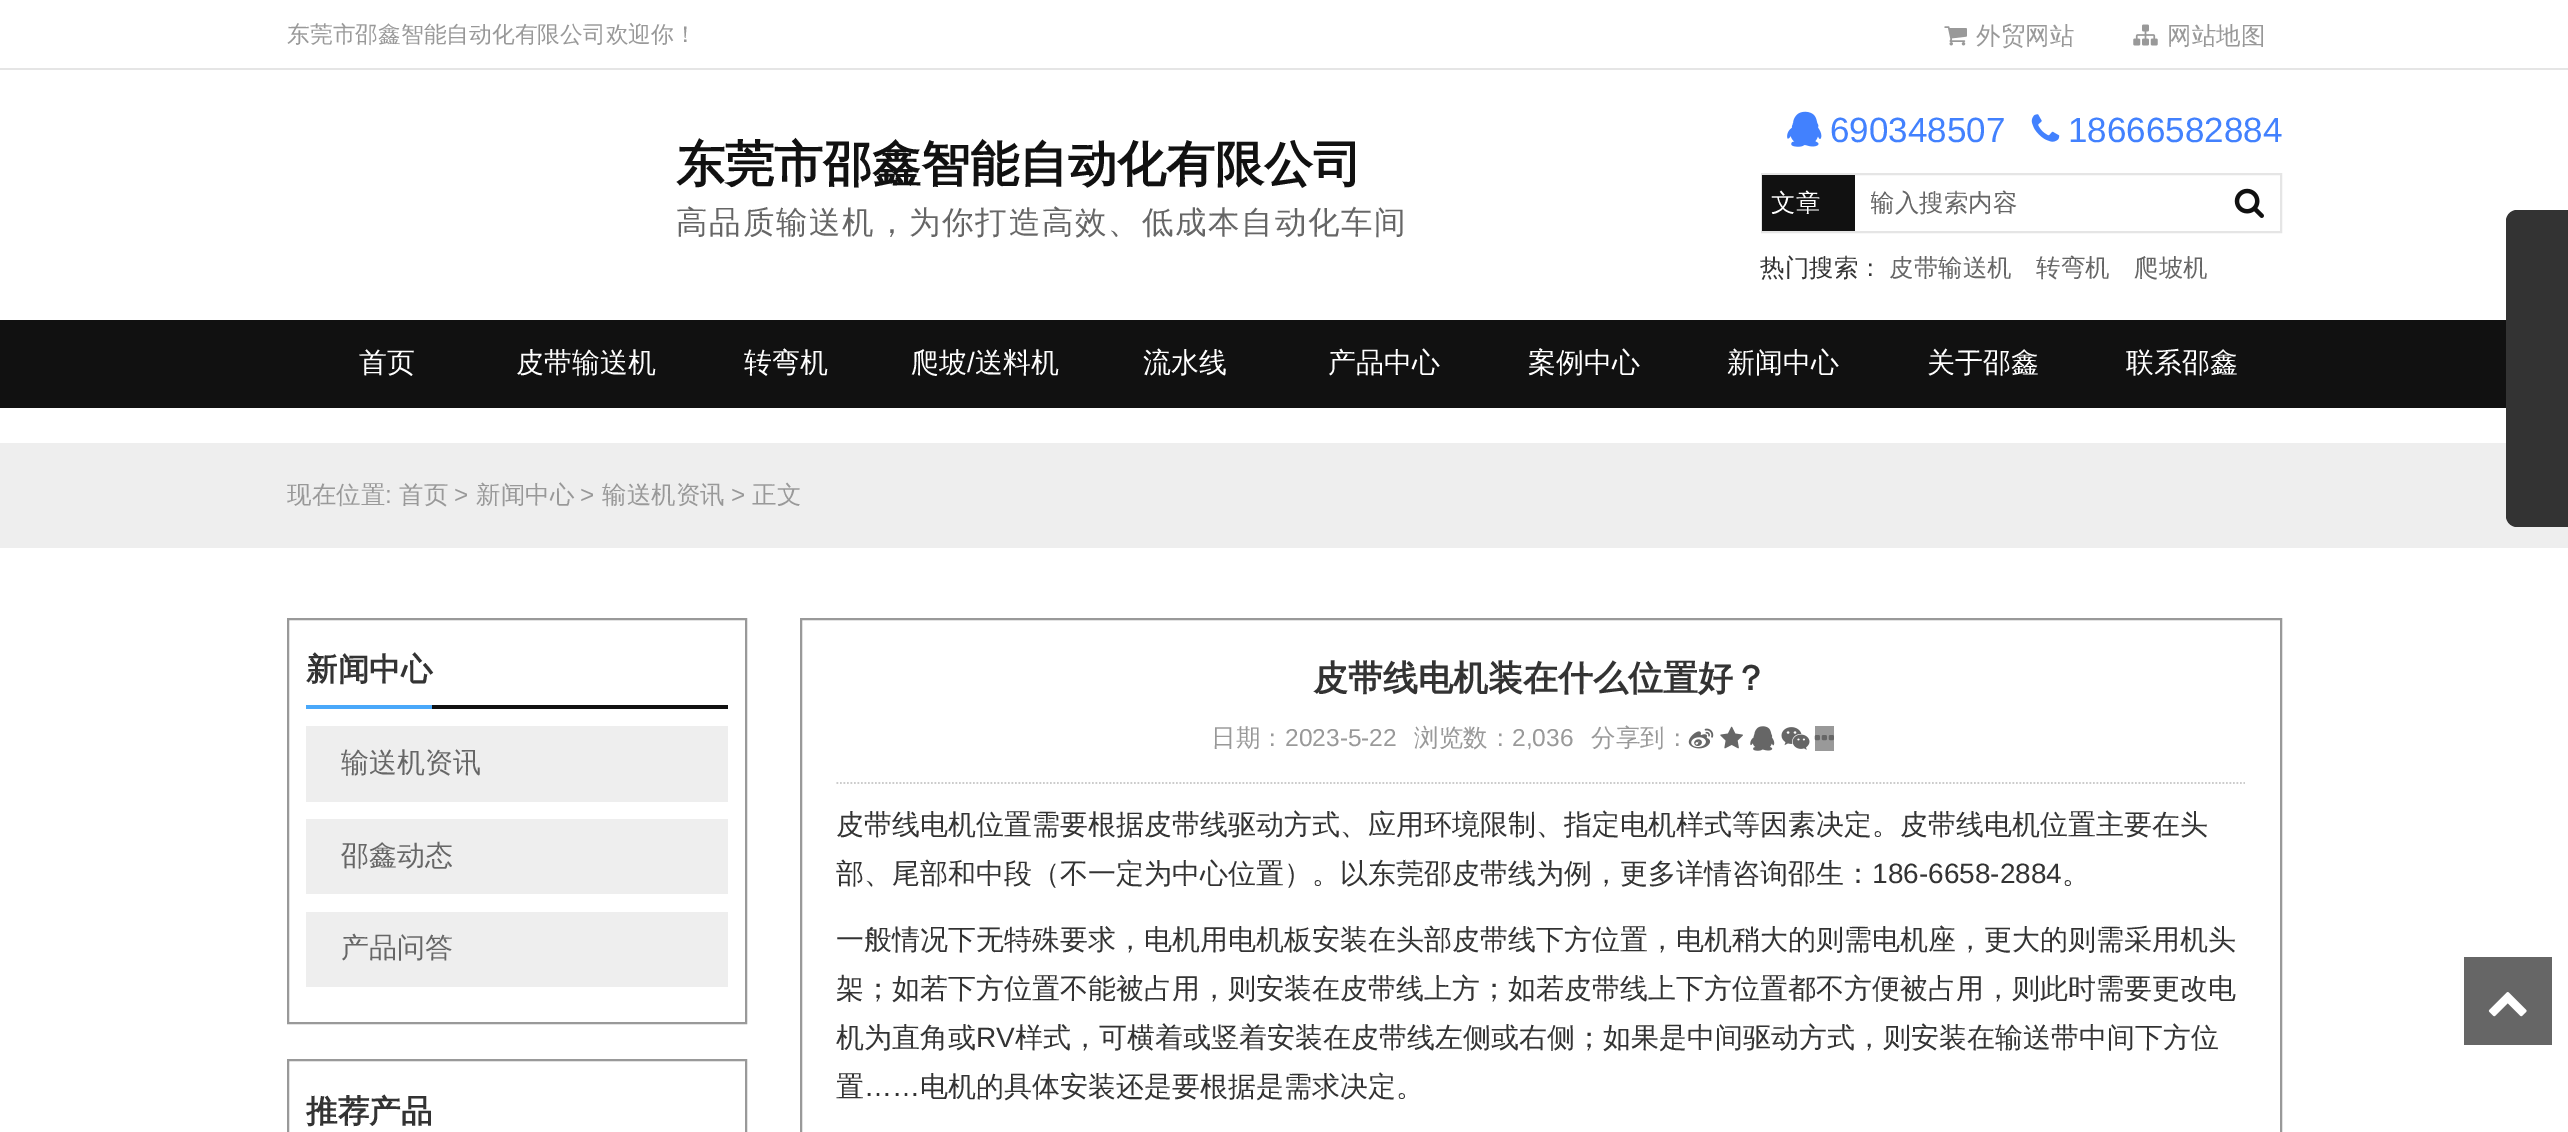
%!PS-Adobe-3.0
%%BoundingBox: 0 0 2568 1132
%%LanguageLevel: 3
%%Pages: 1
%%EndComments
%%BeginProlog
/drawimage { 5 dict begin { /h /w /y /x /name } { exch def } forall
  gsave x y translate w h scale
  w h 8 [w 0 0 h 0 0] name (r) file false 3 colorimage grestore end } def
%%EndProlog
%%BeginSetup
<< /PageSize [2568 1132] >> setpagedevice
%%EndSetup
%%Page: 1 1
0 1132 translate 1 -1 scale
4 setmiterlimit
1 setgray
0 0 2568 1132 rectfill
0.898 setgray
0 68 2568 2 rectfill
(images/1.raw) 1944 26 23 20 drawimage
(images/2.raw) 2133 24 25 22 drawimage
(images/3.raw) 1787 111 35 36 drawimage
(images/4.raw) 2031 114 29 28 drawimage
2 setlinewidth
1762 174 519 58 rectstroke
0.067 setgray
1762 175 93 56 rectfill
(images/5.raw) 2234 188 30 30 drawimage
0 320 2506 88 rectfill
0.933 setgray
0 443 2568 105 rectfill
0.2 setgray
newpath 2517 210 moveto 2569 210 lineto 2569 527 lineto 2517 527 lineto 2511 527 2506 522 2506 516 curveto 2506 221 lineto 2506 215 2511 210 2517 210 curveto closepath fill
0.6 setgray
288 619 458 404 rectstroke
0.067 setgray
432 705 296 4 rectfill
0.286 0.659 0.98 setrgbcolor
306 705 126 4 rectfill
0.933 setgray
306 726 422 76 rectfill
306 819 422 75 rectfill
306 912 422 75 rectfill
0.6 setgray
288 1060 458 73 rectstroke
801 619 1480 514 rectstroke
0.8 setgray
1.8 setlinewidth
[1.75 1.75] 0 setdash
newpath 836.5 783 moveto 2245 783 lineto stroke
(images/6.raw) 1688 728 26 21 drawimage
(images/7.raw) 1720 726 23 23 drawimage
(images/8.raw) 1750 726 25 25 drawimage
(images/9.raw) 1781 727 29 23 drawimage
0.6 setgray
1815 726 19 25 rectfill
(images/10.raw) 1814 735 20 6 drawimage
0.4 setgray
2464 957 88 88 rectfill
(images/11.raw) 2488 992 39 25 drawimage
/WenQuanYiZenHei-Medium [22.75 0 0 -22.75 0 0] selectfont
0.6 setgray
287 42 moveto (东莞市邵鑫智能自动化有限公司欢迎你！) show
/WenQuanYiZenHei-Medium [24.5 0 0 -24.5 0 0] selectfont
1976 44 moveto (外贸网站) show
2167 44 moveto (网站地图) show
/WenQuanYiZenHei-Bold [49 0 0 -49 0 0] selectfont
0.067 setgray
676 181 moveto (东莞市邵鑫智能自动化有限公司) show
/WenQuanYiZenHei-Medium [31.5 0 0 -31.5 0 0] selectfont
0.4 setgray
676 233 moveto 1.75 0 (高品质输送机，为你打造高效、低成本自动化车间) ashow
/LiberationSans-Regular [35 0 0 -35 0 0] selectfont
0.259 0.506 0.996 setrgbcolor
1830 142 moveto (690348507) show
2068 142 moveto (18666582884) show
/WenQuanYiZenHei-Medium [24.5 0 0 -24.5 0 0] selectfont
1 setgray
1771 211 moveto (文章) show
gsave
1871 189 329 32 rectclip
0.4 setgray
1870 211 moveto (输入搜索内容) show
grestore
0.2 setgray
1760 276 moveto (热门搜索：) show
0.4 setgray
1889 276 moveto (皮带输送机) show
2036 276 moveto (转弯机) show
2134 276 moveto (爬坡机) show
/WenQuanYiZenHei-Medium [28 0 0 -28 0 0] selectfont
1 setgray
359 372 moveto (首页) show
516 372 moveto (皮带输送机) show
744 372 moveto (转弯机) show
911 372 moveto (爬坡) show
/LiberationSans-Regular [28 0 0 -28 0 0] selectfont
967 372 moveto (/) show
/WenQuanYiZenHei-Medium [28 0 0 -28 0 0] selectfont
975 372 moveto (送料机) show
1143 372 moveto (流水线) show
1328 372 moveto (产品中心) show
1528 372 moveto (案例中心) show
1727 372 moveto (新闻中心) show
1927 372 moveto (关于邵鑫) show
2126 372 moveto (联系邵鑫) show
/WenQuanYiZenHei-Medium [24.5 0 0 -24.5 0 0] selectfont
0.6 setgray
287 503 moveto (现在位置) show
/LiberationSans-Regular [24.5 0 0 -24.5 0 0] selectfont
385 503 moveto (:) show
/WenQuanYiZenHei-Medium [24.5 0 0 -24.5 0 0] selectfont
399 503 moveto (首页) show
/LiberationSans-Regular [24.5 0 0 -24.5 0 0] selectfont
454 503 moveto (>) show
/WenQuanYiZenHei-Medium [24.5 0 0 -24.5 0 0] selectfont
476 503 moveto (新闻中心) show
/LiberationSans-Regular [24.5 0 0 -24.5 0 0] selectfont
580 503 moveto (>) show
/WenQuanYiZenHei-Medium [24.5 0 0 -24.5 0 0] selectfont
602 503 moveto (输送机资讯) show
/LiberationSans-Regular [24.5 0 0 -24.5 0 0] selectfont
731 503 moveto (>) show
/WenQuanYiZenHei-Medium [24.5 0 0 -24.5 0 0] selectfont
752 503 moveto (正文) show
/WenQuanYiZenHei-Bold [31.5 0 0 -31.5 0 0] selectfont
0.2 setgray
306 680 moveto (新闻中心) show
/WenQuanYiZenHei-Medium [28 0 0 -28 0 0] selectfont
0.4 setgray
341 772 moveto (输送机资讯) show
341 865 moveto (邵鑫动态) show
341 957 moveto (产品问答) show
/WenQuanYiZenHei-Bold [31.5 0 0 -31.5 0 0] selectfont
0.2 setgray
306 1122 moveto (推荐产品) show
/WenQuanYiZenHei-Bold [35 0 0 -35 0 0] selectfont
1313 690 moveto (皮带线电机装在什么位置好？) show
/WenQuanYiZenHei-Medium [24.5 0 0 -24.5 0 0] selectfont
0.6 setgray
1211 746 moveto (日期：) show
/LiberationSans-Regular [24.5 0 0 -24.5 0 0] selectfont
1285 746 moveto (2023-5-22) show
/WenQuanYiZenHei-Medium [24.5 0 0 -24.5 0 0] selectfont
1414 746 moveto (浏览数：) show
/LiberationSans-Regular [24.5 0 0 -24.5 0 0] selectfont
1512 746 moveto (2,036) show
/WenQuanYiZenHei-Medium [24.5 0 0 -24.5 0 0] selectfont
1591 746 moveto (分享到：) show
/WenQuanYiZenHei-Medium [28 0 0 -28 0 0] selectfont
0.2 setgray
836 834 moveto (皮带线电机位置需要根据皮带线驱动方式、应用环境限制、指定电机样式等因素决定。皮带线电机位置主要在头) show
836 883 moveto (部、尾部和中段（不一定为中心位置）。以东莞邵皮带线为例，更多详情咨询邵生：) show
/LiberationSans-Regular [28 0 0 -28 0 0] selectfont
1872 883 moveto (186-6658-2884) show
/WenQuanYiZenHei-Medium [28 0 0 -28 0 0] selectfont
2062 883 moveto (。) show
836 949 moveto (一般情况下无特殊要求，电机用电机板安装在头部皮带线下方位置，电机稍大的则需电机座，更大的则需采用机头) show
836 998 moveto (架；如若下方位置不能被占用，则安装在皮带线上方；如若皮带线上下方位置都不方便被占用，则此时需要更改电) show
836 1047 moveto (机为直角或) show
/LiberationSans-Regular [28 0 0 -28 0 0] selectfont
976 1047 moveto (RV) show
/WenQuanYiZenHei-Medium [28 0 0 -28 0 0] selectfont
1015 1047 moveto (样式，可横着或竖着安装在皮带线左侧或右侧；如果是中间驱动方式，则安装在输送带中间下方位) show
836 1096 moveto (置) show
/LiberationSans-Regular [28 0 0 -28 0 0] selectfont
864 1096 moveto (……) show
/WenQuanYiZenHei-Medium [28 0 0 -28 0 0] selectfont
920 1096 moveto (电机的具体安装还是要根据是需求决定。) show
showpage
%%EOF
